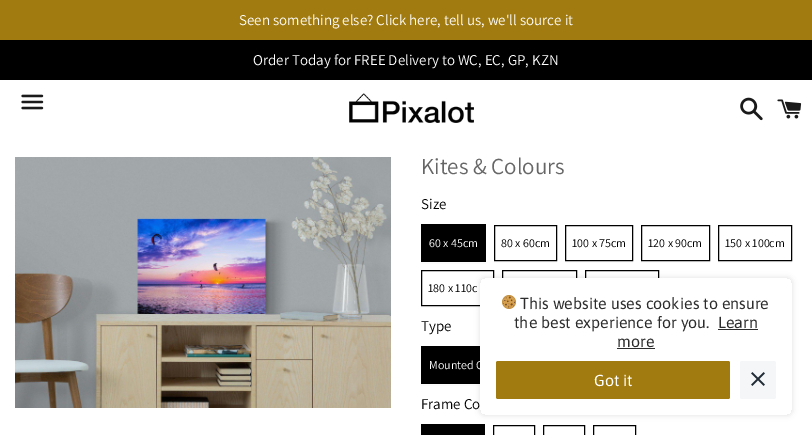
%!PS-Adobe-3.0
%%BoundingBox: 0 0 812 435
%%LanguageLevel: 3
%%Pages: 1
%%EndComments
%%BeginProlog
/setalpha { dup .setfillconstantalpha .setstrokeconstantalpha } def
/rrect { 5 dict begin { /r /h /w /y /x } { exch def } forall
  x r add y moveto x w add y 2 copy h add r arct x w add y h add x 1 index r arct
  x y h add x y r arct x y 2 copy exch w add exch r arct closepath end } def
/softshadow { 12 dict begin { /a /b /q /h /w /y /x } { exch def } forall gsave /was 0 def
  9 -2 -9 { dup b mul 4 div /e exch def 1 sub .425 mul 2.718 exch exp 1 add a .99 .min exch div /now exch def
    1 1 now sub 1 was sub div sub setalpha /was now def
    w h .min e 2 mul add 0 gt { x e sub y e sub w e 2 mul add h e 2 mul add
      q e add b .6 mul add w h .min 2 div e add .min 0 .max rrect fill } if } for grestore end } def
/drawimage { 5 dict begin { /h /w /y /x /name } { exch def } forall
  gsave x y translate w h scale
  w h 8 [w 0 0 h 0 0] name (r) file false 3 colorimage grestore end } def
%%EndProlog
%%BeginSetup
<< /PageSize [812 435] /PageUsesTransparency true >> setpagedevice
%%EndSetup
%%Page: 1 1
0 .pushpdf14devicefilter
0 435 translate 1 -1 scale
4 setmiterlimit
1 setgray
0 0 812 435 rectfill
0.631 0.478 0.063 setrgbcolor
0 0 812 40 rectfill
0 setgray
0 40 812 40 rectfill
(images/1.raw) 21 94 23 16 drawimage
(images/2.raw) 349 93 125 30 drawimage
(images/3.raw) 740 97 23 24 drawimage
(images/4.raw) 777 99 25 20 drawimage
(images/5.raw) 15 157 376 251 drawimage
0.984 setgray
421 262 65 2 rectfill
0 setgray
421 224 65 38 rectfill
0.984 setgray
494 261 63 2 rectfill
0 setgray
494.5 225.5 62 35 rectstroke
0.984 setgray
565 261 68 2 rectfill
0 setgray
565.5 225.5 67 35 rectstroke
0.984 setgray
641 261 69 2 rectfill
0 setgray
641.5 225.5 68 35 rectstroke
0.984 setgray
718 261 74 2 rectfill
0 setgray
718.5 225.5 73 35 rectstroke
0.984 setgray
421 306 59 2 rectfill
0 setgray
421.5 270.5 72 35 rectstroke
502.5 270.5 74 35 rectstroke
585.5 270.5 73 35 rectstroke
0.984 setgray
421 384 59 2 rectfill
0 setgray
421 346 59 38 rectfill
421 424 64 11 rectfill
493.5 425.5 41 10 rectstroke
543.5 425.5 41 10 rectstroke
593.5 425.5 42 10 rectstroke
1 setgray
480 278 312 137 5 rrect fill
gsave
newpath 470 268 moveto 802 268 lineto 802 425 lineto 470 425 lineto closepath 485 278 moveto 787 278 lineto 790 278 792 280 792 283 curveto 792 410 lineto 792 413 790 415 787 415 curveto 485 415 lineto 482 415 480 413 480 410 curveto 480 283 lineto 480 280 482 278 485 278 curveto closepath eoclip newpath
0 setgray
480 278 312 137 5 3 0.12 softshadow
grestore
(images/6.raw) 502 295 14 14 drawimage
0.176 setgray
718 329 40 1 rectfill
617 348 38 1 rectfill
0.631 0.478 0.063 setrgbcolor
496 361 234 38 2 rrect fill
0.957 0.965 0.973 setrgbcolor
740 361 36 38 2 rrect fill
(images/7.raw) 751 372 14 14 drawimage
/Assistant-Regular [15 0 0 -15 0 0] selectfont
1 setgray
239 25 moveto (Seen something else? Click here, tell us, we'll source it) show
253 65 moveto (Order Today for FREE Delivery to WC, EC, GP, KZN) show
/Assistant-Regular [23 0 0 -23 0 0] selectfont
0.4 setgray
421 174 moveto (Kites & Colours) show
/Assistant-Regular [15 0 0 -15 0 0] selectfont
0 setgray
421 209 moveto (Size) show
/Assistant-Regular [12 0 0 -12 0 0] selectfont
1 setgray
429 247 moveto (60 x 45cm) show
0 setgray
501 247 moveto (80 x 60cm) show
572 247 moveto (100 x 75cm) show
648 247 moveto (120 x 90cm) show
725 247 moveto (150 x 100cm) show
428 292 moveto (180 x 110c) show
/Assistant-Regular [15 0 0 -15 0 0] selectfont
421 331 moveto (Type) show
/Assistant-Regular [12 0 0 -12 0 0] selectfont
1 setgray
429 369 moveto (Mounted C) show
/Assistant-Regular [15 0 0 -15 0 0] selectfont
0 setgray
421 409 moveto (Frame Co) show
/Asap-Regular [16 0 0 -16 0 0] selectfont
0.176 setgray
520 309 moveto (This website uses cookies to ensure) show
514 328 moveto (the best experience for you.) show
718 328 moveto (Learn) show
617 347 moveto (more) show
1 setgray
594 386 moveto (Got it) show
.poppdf14devicefilter showpage
%%EOF
